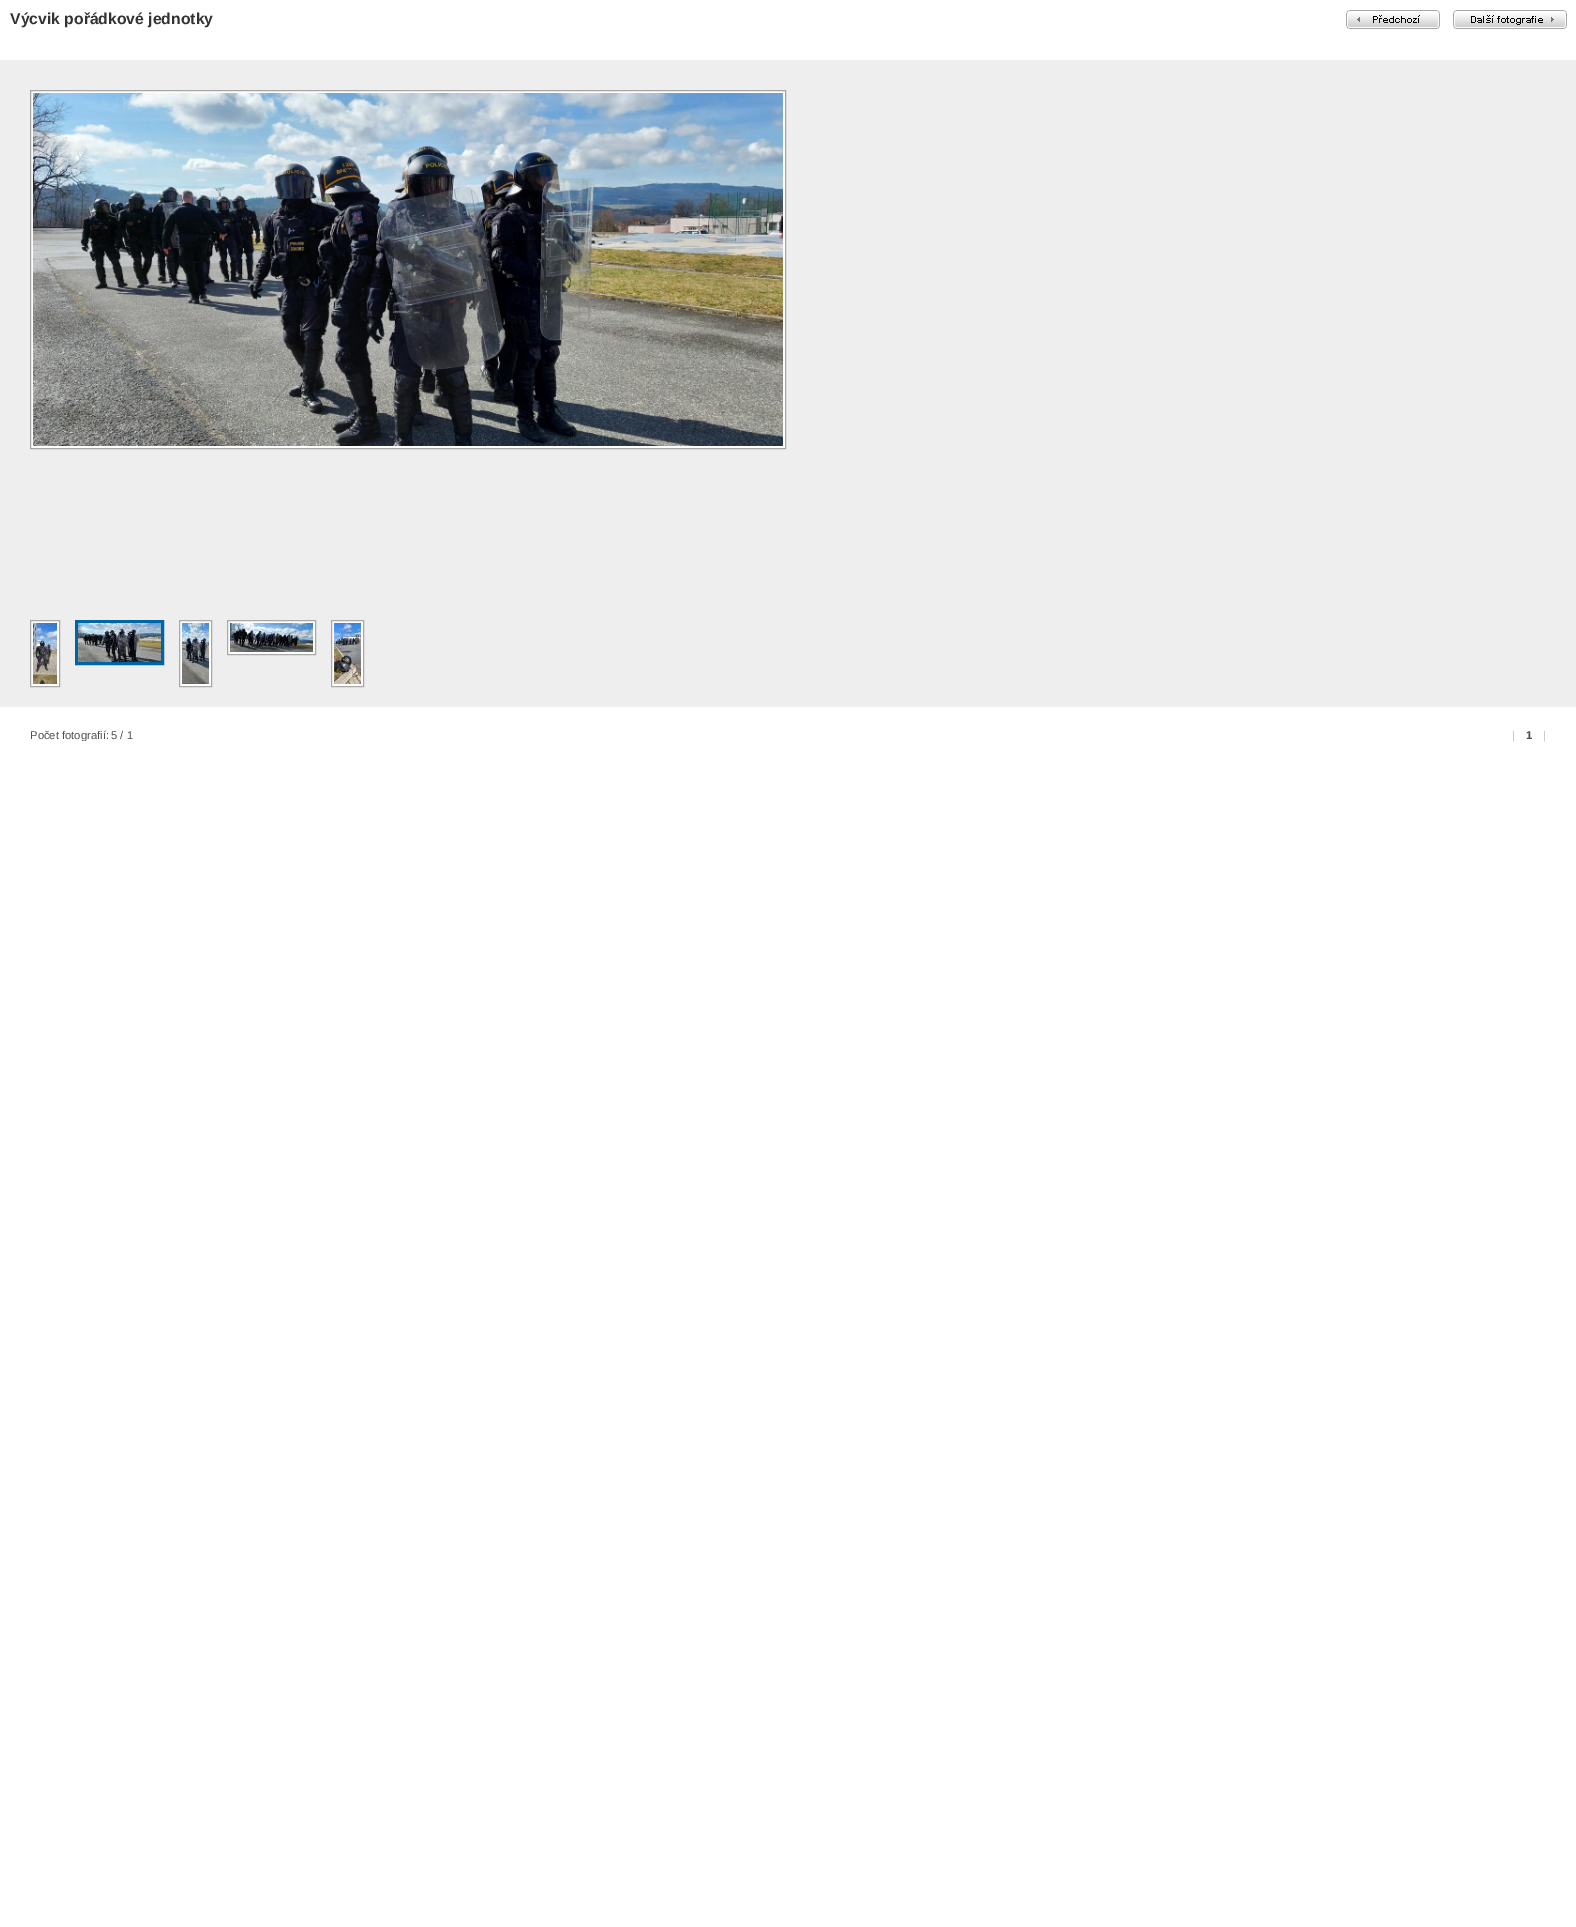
%!PS-Adobe-3.0
%%BoundingBox: 0 0 1576 1927
%%LanguageLevel: 3
%%Pages: 1
%%EndComments
%%BeginProlog
/drawimage { 5 dict begin { /h /w /y /x /name } { exch def } forall
  gsave x y translate w h scale
  w h 8 [w 0 0 h 0 0] name (r) file false 3 colorimage grestore end } def
%%EndProlog
%%BeginSetup
<< /PageSize [1576 1927] >> setpagedevice
%%EndSetup
%%Page: 1 1
0 1927 translate 1 -1 scale
4 setmiterlimit
1 setgray
0 0 1576 1927 rectfill
0.933 setgray
0 60 1576 647 rectfill
(images/1.raw) 1346 10 94 19 drawimage
(images/2.raw) 1453 10 114 19 drawimage
1 setgray
newpath 30.5 90.5 moveto 785.5 90.5 lineto 785.5 448.5 lineto 30.5 448.5 lineto closepath gsave fill grestore
0.647 setgray
stroke
(images/3.raw) 33 93 750 353 drawimage
1 setgray
newpath 30.5 620.5 moveto 59.5 620.5 lineto 59.5 686.5 lineto 30.5 686.5 lineto closepath gsave fill grestore
0.663 setgray
stroke
(images/4.raw) 33 623 24 61 drawimage
0 0.396 0.643 setrgbcolor
3 setlinewidth
76.5 621.5 86 42 rectstroke
(images/5.raw) 78 623 83 39 drawimage
1 setgray
newpath 179.5 620.5 moveto 211.5 620.5 lineto 211.5 686.5 lineto 179.5 686.5 lineto closepath gsave fill grestore
0.663 setgray
1 setlinewidth
stroke
(images/6.raw) 182 623 27 61 drawimage
1 setgray
newpath 227.5 620.5 moveto 315.5 620.5 lineto 315.5 654.5 lineto 227.5 654.5 lineto closepath gsave fill grestore
0.663 setgray
stroke
(images/7.raw) 230 623 83 29 drawimage
1 setgray
newpath 331.5 620.5 moveto 363.5 620.5 lineto 363.5 686.5 lineto 331.5 686.5 lineto closepath gsave fill grestore
0.663 setgray
stroke
(images/8.raw) 334 623 27 61 drawimage
/LiberationSans-Bold [15.75 0 0 -15.75 0 0] selectfont
0.2 setgray
10 24 moveto (Výcvik pořádkové jednotky) show
gsave
0 729 1576 12 rectclip
/LiberationSans-Regular [11.25 0 0 -11.25 0 0] selectfont
0.31 setgray
30 739 moveto (Počet fotografií:) show
grestore
/LiberationSans-Regular [11.25 0 0 -11.25 0 0] selectfont
0.31 setgray
111 739 moveto (5 / 1) show
0.8 setgray
1512 739 moveto (|) show
/LiberationSans-Bold [11.25 0 0 -11.25 0 0] selectfont
0.31 setgray
1526 739 moveto (1) show
/LiberationSans-Regular [11.25 0 0 -11.25 0 0] selectfont
0.8 setgray
1543 739 moveto (|) show
showpage
%%EOF
